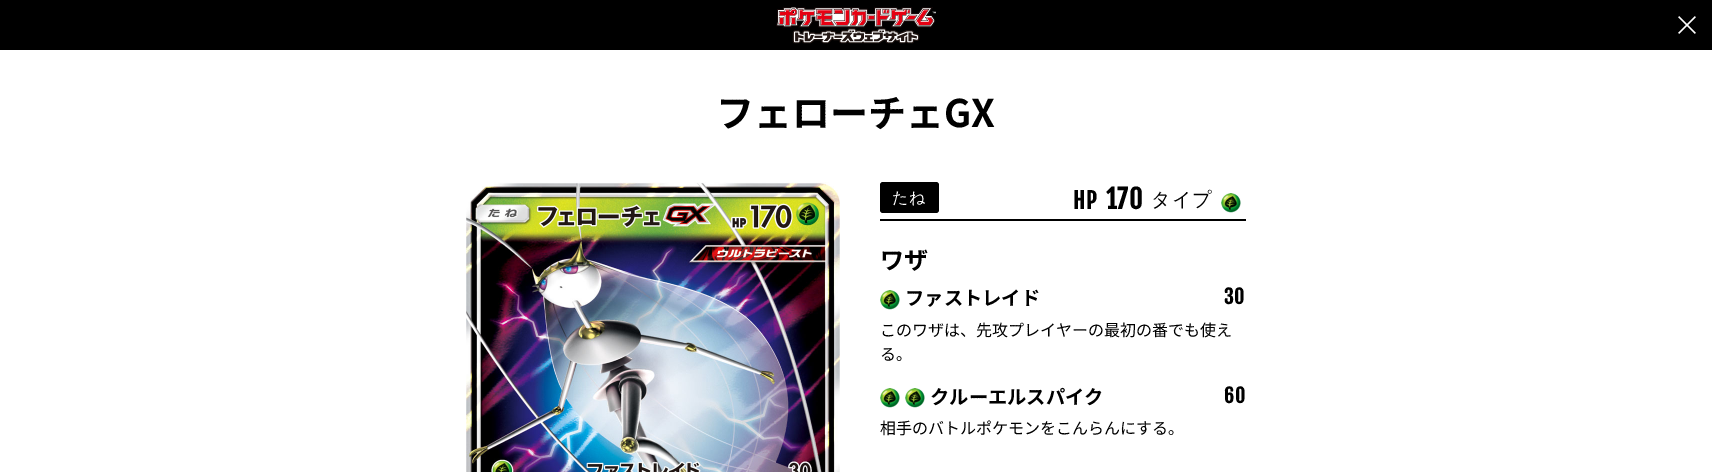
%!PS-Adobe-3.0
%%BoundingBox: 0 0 1712 472
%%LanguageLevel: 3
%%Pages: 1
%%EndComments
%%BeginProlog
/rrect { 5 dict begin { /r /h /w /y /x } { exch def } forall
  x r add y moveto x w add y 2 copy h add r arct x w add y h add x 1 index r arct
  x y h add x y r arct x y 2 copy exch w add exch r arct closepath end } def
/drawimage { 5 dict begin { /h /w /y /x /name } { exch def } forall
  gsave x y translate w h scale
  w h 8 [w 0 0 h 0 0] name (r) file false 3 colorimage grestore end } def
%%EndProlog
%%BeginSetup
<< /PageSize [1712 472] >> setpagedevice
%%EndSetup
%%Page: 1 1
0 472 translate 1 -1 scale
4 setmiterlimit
1 setgray
0 0 1712 472 rectfill
0 setgray
0 0 1712 50 rectfill
(images/1.raw) 776 7 160 37 drawimage
(images/2.raw) 1678 16 18 18 drawimage
(images/3.raw) 466 182 374 290 drawimage
880 219 366 2 rectfill
880 182 59 31 3 rrect fill
(images/4.raw) 1221 193 20 20 drawimage
(images/4.raw) 880 290 20 20 drawimage
(images/4.raw) 880 388 20 20 drawimage
(images/4.raw) 905 388 20 20 drawimage
/NotoSansJP-Bold [38 0 0 -38 0 0] selectfont
716 127 moveto (フェローチェGX) show
/WenQuanYiZenHei-Medium [16 0 0 -16 0 0] selectfont
1 setgray
892 203 moveto 1 0 (たね) ashow
/FjallaOne-Bold [22 0 0 -22 0 0] selectfont
0 setgray
1073 209 moveto 1 0 (HP) ashow
/FjallaOne-Bold [26 0 0 -26 0 0] selectfont
1106 209 moveto 1 0 (170) ashow
/WenQuanYiZenHei-Medium [19.25 0 0 -19.25 0 0] selectfont
1151 206 moveto 1 0 (タイプ) ashow
/NotoSansJP-Bold [24 0 0 -24 0 0] selectfont
880 269 moveto (ワザ) show
/NotoSansJP-Bold [19.25 0 0 -19.25 0 0] selectfont
905 305 moveto (ファストレイド) show
/FjallaOne-Bold [19.25 0 0 -19.25 0 0] selectfont
1224 304 moveto 1 0 (30) ashow
/NotoSansJP-Regular [16 0 0 -16 0 0] selectfont
880 336 moveto (このワザは、先攻プレイヤーの最初の番でも使え) show
880 360 moveto (る。) show
/NotoSansJP-Bold [19.25 0 0 -19.25 0 0] selectfont
930 404 moveto (クルーエルスパイク) show
/FjallaOne-Bold [19.25 0 0 -19.25 0 0] selectfont
1224 403 moveto 1 0 (60) ashow
/NotoSansJP-Regular [16 0 0 -16 0 0] selectfont
880 434 moveto (相手のバトルポケモンをこんらんにする。) show
showpage
%%EOF
